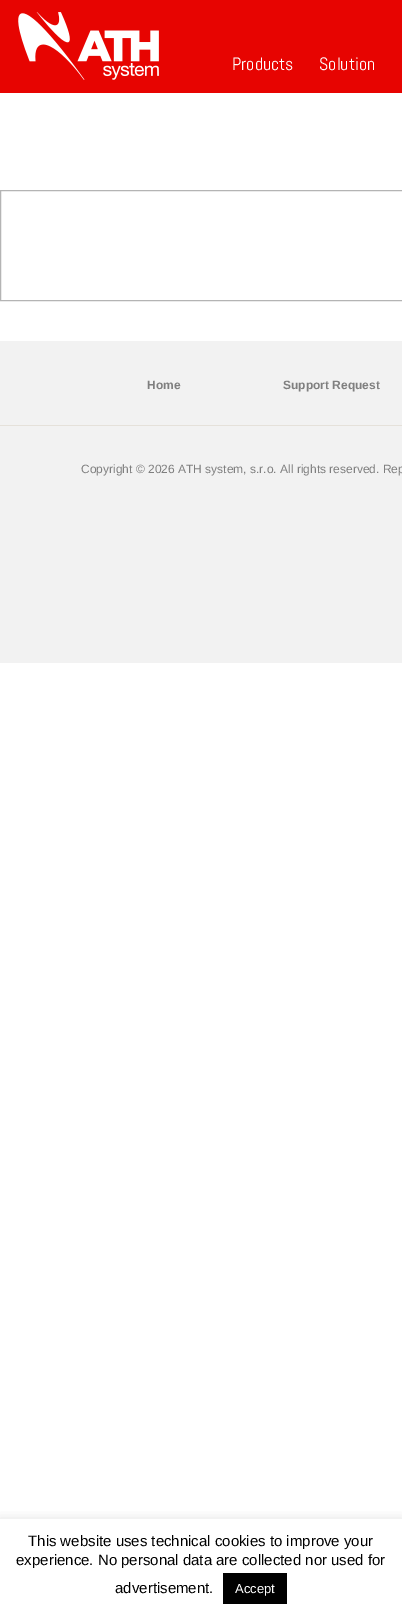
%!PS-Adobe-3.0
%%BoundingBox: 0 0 402 1616
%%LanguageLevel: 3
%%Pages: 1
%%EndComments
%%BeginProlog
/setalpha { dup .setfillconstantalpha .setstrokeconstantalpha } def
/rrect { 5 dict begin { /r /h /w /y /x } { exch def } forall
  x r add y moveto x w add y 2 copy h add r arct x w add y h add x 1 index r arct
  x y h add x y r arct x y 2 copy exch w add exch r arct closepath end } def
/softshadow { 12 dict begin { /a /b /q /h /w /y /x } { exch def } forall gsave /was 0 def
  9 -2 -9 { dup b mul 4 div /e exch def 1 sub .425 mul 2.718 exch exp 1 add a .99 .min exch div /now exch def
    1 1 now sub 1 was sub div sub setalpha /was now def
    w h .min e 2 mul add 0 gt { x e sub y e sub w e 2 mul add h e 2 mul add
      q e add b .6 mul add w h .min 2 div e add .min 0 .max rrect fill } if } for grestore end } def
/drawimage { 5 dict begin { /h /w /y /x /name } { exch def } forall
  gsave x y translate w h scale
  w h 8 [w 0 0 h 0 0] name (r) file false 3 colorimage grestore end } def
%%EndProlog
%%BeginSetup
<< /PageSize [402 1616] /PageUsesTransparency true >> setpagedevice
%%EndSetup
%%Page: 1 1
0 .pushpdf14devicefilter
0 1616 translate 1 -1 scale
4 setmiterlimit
1 setgray
0 0 402 1616 rectfill
0.906 0.016 0.004 setrgbcolor
0 0 402 93 rectfill
(images/1.raw) 18 12 141 68 drawimage
0.706 setgray
0.5 190.5 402 110 rectstroke
0.949 setgray
0 341 402 322 rectfill
0.898 0.882 0.855 setrgbcolor
0 425 402 1 rectfill
gsave
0 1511 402 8 rectclip
0.675 0.671 0.671 setrgbcolor
0 1518 402 97 0 5 0.3 softshadow
grestore
0 setgray
223 1573 64 31 rectfill
/Abel-Regular [18 0 0 -18 0 0] selectfont
1 setgray
232 70 moveto (Products) show
319 70 moveto (Solution) show
/LiberationSans-Bold [12 0 0 -12 0 0] selectfont
0.498 setgray
147 389 moveto (Home) show
283 389 moveto (Support Request) show
/LiberationSans-Regular [12 0 0 -12 0 0] selectfont
81 473 moveto (Copyright © 2026 ATH system, s.r.o. All rights reserved. Rep) show
/LiberationSans-Regular [15 0 0 -15 0 0] selectfont
0 setgray
28 1546 moveto (This website uses technical cookies to improve your) show
16 1565 moveto (experience. No personal data are collected nor used for) show
115 1593 moveto (advertisement.) show
/LiberationSans-Regular [13 0 0 -13 0 0] selectfont
1 setgray
235 1593 moveto (Accept) show
.poppdf14devicefilter showpage
%%EOF
